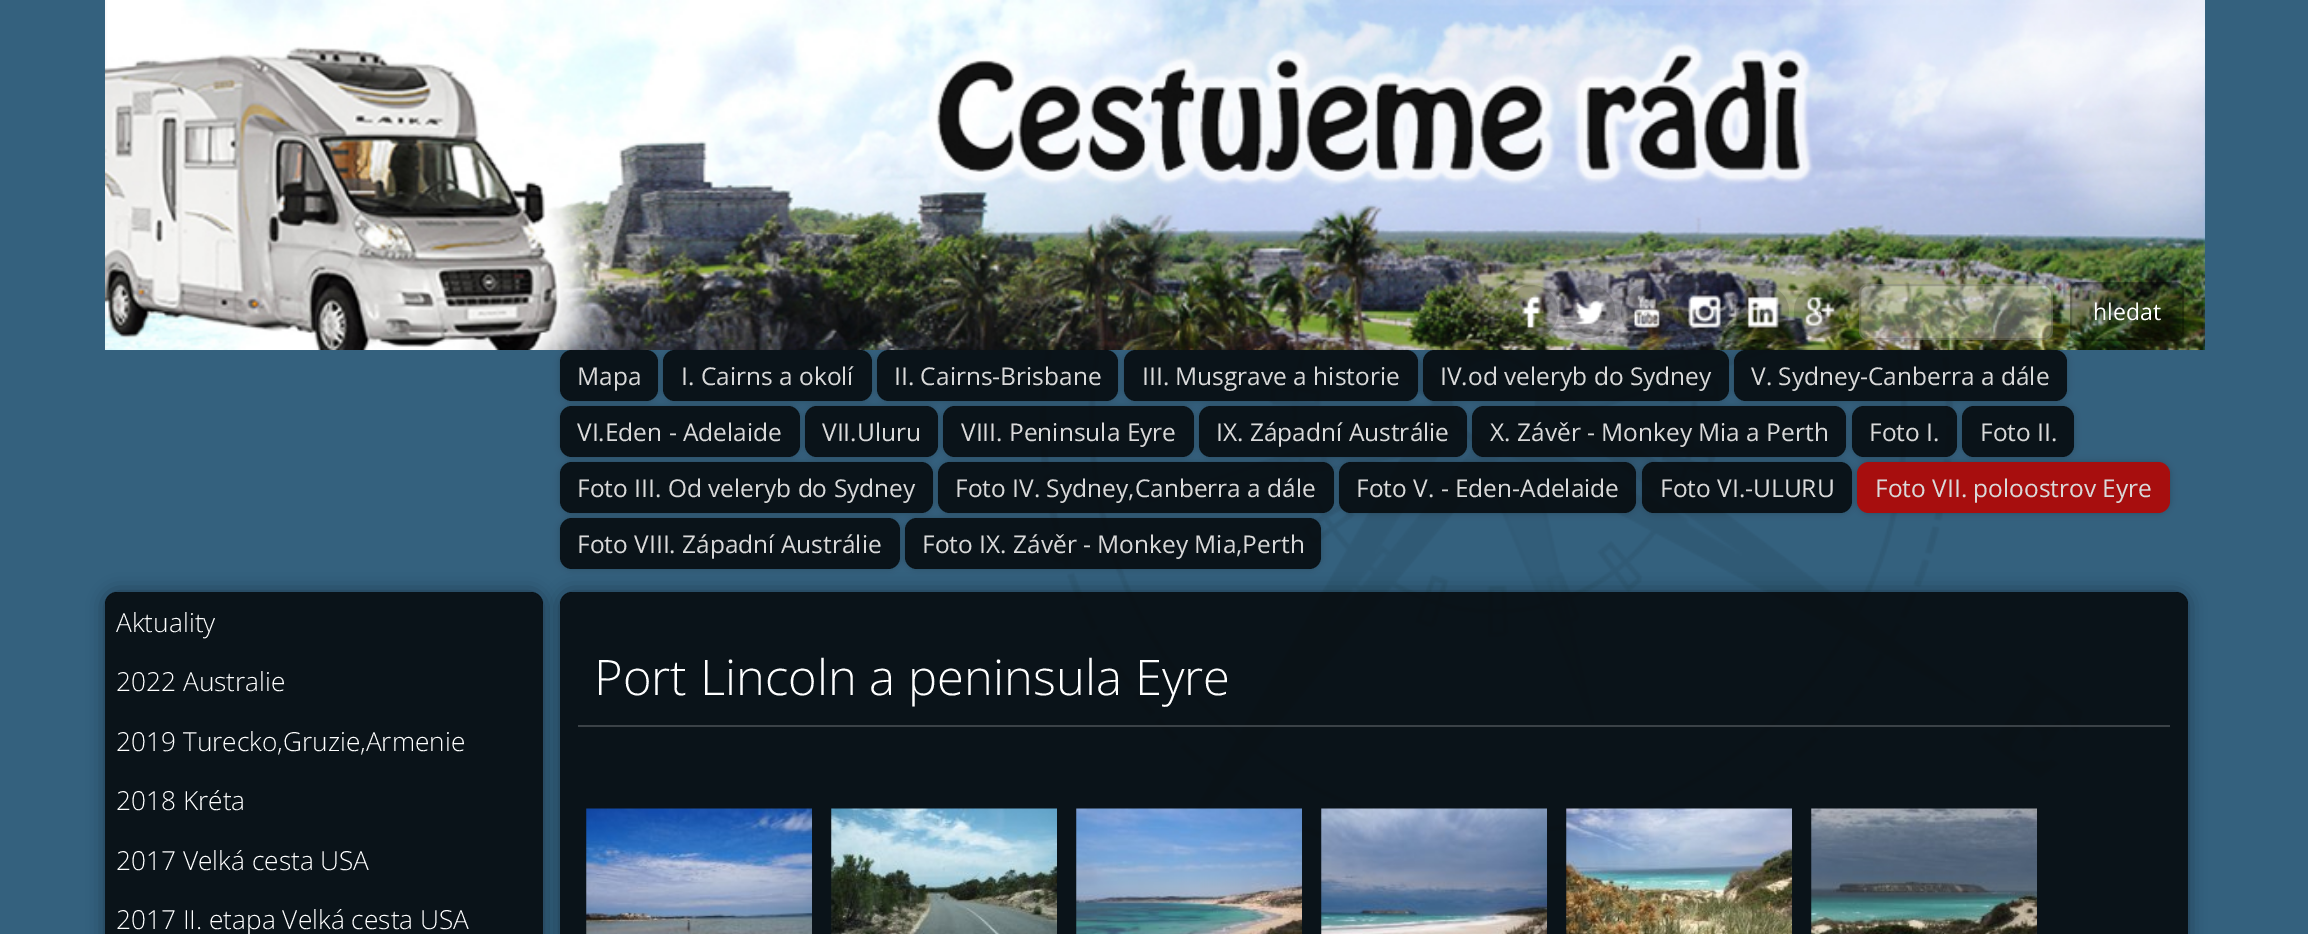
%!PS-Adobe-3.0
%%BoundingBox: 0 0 2308 934
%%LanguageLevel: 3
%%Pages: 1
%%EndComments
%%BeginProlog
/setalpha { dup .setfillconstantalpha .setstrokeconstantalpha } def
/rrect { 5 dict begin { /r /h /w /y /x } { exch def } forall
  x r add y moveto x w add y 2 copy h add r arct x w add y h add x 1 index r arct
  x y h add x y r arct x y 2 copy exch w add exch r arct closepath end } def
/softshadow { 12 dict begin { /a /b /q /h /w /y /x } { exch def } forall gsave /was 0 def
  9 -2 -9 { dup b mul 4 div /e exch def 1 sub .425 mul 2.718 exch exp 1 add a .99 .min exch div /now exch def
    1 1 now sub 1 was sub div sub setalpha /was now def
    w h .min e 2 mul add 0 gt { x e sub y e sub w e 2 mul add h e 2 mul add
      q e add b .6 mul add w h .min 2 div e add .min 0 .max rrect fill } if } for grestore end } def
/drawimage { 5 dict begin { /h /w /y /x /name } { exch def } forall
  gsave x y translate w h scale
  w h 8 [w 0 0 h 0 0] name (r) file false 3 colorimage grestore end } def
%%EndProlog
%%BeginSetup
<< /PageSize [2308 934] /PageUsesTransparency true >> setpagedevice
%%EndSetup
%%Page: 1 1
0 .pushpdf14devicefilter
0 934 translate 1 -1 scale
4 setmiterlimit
0.204 0.38 0.494 setrgbcolor
0 0 2308 934 rectfill
(images/1.raw) 1039 350 1044 521 drawimage
(images/2.raw) 105 0 2100 350 drawimage
0.15 setalpha
0 setgray
newpath 1531.5 311.5 26.5 0 360 arc closepath fill
1 setalpha
(images/3.raw) 1522 295 19 33 drawimage
0.15 setalpha
1563 285 52 53 26 rrect fill
1 setalpha
(images/4.raw) 1574 300 32 25 drawimage
0.15 setalpha
1621 285 52 53 26 rrect fill
1 setalpha
(images/5.raw) 1634 295 26 33 drawimage
0.15 setalpha
newpath 1704.5 311.5 26.5 0 360 arc closepath fill
1 setalpha
(images/6.raw) 1688 295 33 33 drawimage
0.15 setalpha
newpath 1762.5 311.5 26.5 0 360 arc closepath fill
1 setalpha
(images/7.raw) 1747 297 32 31 drawimage
0.15 setalpha
1794 285 52 53 26 rrect fill
1 setalpha
(images/8.raw) 1805 297 30 29 drawimage
gsave
newpath 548 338 moveto 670 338 lineto 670 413 lineto 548 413 lineto closepath 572 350 moveto 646 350 lineto 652.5 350 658 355.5 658 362 curveto 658 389 lineto 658 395.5 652.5 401 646 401 curveto 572 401 lineto 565.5 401 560 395.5 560 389 curveto 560 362 lineto 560 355.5 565.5 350 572 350 curveto closepath eoclip newpath
560 350 98 51 12 3.5 0.2 softshadow
grestore
0.8 setalpha
560 350 98 51 12 rrect fill
gsave
newpath 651 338 moveto 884 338 lineto 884 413 lineto 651 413 lineto closepath 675 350 moveto 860 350 lineto 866.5 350 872 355.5 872 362 curveto 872 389 lineto 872 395.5 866.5 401 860 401 curveto 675 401 lineto 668.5 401 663 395.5 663 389 curveto 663 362 lineto 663 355.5 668.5 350 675 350 curveto closepath eoclip newpath
1 setalpha
663 350 209 51 12 3.5 0.2 softshadow
grestore
663 350 209 51 12 rrect fill
gsave
newpath 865 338 moveto 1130 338 lineto 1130 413 lineto 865 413 lineto closepath 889 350 moveto 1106 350 lineto 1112.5 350 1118 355.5 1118 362 curveto 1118 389 lineto 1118 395.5 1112.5 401 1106 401 curveto 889 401 lineto 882.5 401 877 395.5 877 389 curveto 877 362 lineto 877 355.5 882.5 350 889 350 curveto closepath eoclip newpath
1 setalpha
877 350 241 51 12 3.5 0.2 softshadow
grestore
877 350 241 51 12 rrect fill
gsave
newpath 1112 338 moveto 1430 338 lineto 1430 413 lineto 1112 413 lineto closepath 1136 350 moveto 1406 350 lineto 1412.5 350 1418 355.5 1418 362 curveto 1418 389 lineto 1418 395.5 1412.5 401 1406 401 curveto 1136 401 lineto 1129.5 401 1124 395.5 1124 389 curveto 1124 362 lineto 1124 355.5 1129.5 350 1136 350 curveto closepath eoclip newpath
1 setalpha
1124 350 294 51 12 3.5 0.2 softshadow
grestore
1124 350 294 51 12 rrect fill
gsave
newpath 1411 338 moveto 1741 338 lineto 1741 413 lineto 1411 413 lineto closepath 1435 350 moveto 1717 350 lineto 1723.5 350 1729 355.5 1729 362 curveto 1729 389 lineto 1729 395.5 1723.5 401 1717 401 curveto 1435 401 lineto 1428.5 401 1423 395.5 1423 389 curveto 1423 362 lineto 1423 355.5 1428.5 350 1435 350 curveto closepath eoclip newpath
1 setalpha
1423 350 306 51 12 3.5 0.2 softshadow
grestore
1423 350 306 51 12 rrect fill
gsave
newpath 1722 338 moveto 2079 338 lineto 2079 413 lineto 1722 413 lineto closepath 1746 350 moveto 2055 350 lineto 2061.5 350 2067 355.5 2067 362 curveto 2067 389 lineto 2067 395.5 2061.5 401 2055 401 curveto 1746 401 lineto 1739.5 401 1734 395.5 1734 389 curveto 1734 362 lineto 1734 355.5 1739.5 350 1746 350 curveto closepath eoclip newpath
1 setalpha
1734 350 333 51 12 3.5 0.2 softshadow
grestore
0.3 setalpha
1 setgray
1859 284 194 56 9 rrect fill
0.2 setalpha
0 setgray
2 setlinewidth
1860 285 192 54 8 rrect stroke
2070 282 114 59 9 rrect fill
2071 283 112 57 8 rrect stroke
0.8 setalpha
1734 350 333 51 12 rrect fill
gsave
newpath 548 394 moveto 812 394 lineto 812 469 lineto 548 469 lineto closepath 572 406 moveto 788 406 lineto 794.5 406 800 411.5 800 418 curveto 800 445 lineto 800 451.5 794.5 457 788 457 curveto 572 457 lineto 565.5 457 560 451.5 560 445 curveto 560 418 lineto 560 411.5 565.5 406 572 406 curveto closepath eoclip newpath
1 setalpha
560 406 240 51 12 3.5 0.2 softshadow
grestore
560 406 240 51 12 rrect fill
gsave
newpath 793 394 moveto 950 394 lineto 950 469 lineto 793 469 lineto closepath 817 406 moveto 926 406 lineto 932.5 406 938 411.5 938 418 curveto 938 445 lineto 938 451.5 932.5 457 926 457 curveto 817 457 lineto 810.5 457 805 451.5 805 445 curveto 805 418 lineto 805 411.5 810.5 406 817 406 curveto closepath eoclip newpath
1 setalpha
805 406 133 51 12 3.5 0.2 softshadow
grestore
805 406 133 51 12 rrect fill
gsave
newpath 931 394 moveto 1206 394 lineto 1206 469 lineto 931 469 lineto closepath 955 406 moveto 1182 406 lineto 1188.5 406 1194 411.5 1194 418 curveto 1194 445 lineto 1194 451.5 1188.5 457 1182 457 curveto 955 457 lineto 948.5 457 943 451.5 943 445 curveto 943 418 lineto 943 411.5 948.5 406 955 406 curveto closepath eoclip newpath
1 setalpha
943 406 251 51 12 3.5 0.2 softshadow
grestore
943 406 251 51 12 rrect fill
gsave
newpath 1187 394 moveto 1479 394 lineto 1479 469 lineto 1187 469 lineto closepath 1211 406 moveto 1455 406 lineto 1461.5 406 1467 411.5 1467 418 curveto 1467 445 lineto 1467 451.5 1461.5 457 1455 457 curveto 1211 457 lineto 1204.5 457 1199 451.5 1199 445 curveto 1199 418 lineto 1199 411.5 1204.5 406 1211 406 curveto closepath eoclip newpath
1 setalpha
1199 406 268 51 12 3.5 0.2 softshadow
grestore
1199 406 268 51 12 rrect fill
gsave
newpath 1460 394 moveto 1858 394 lineto 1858 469 lineto 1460 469 lineto closepath 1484 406 moveto 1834 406 lineto 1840.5 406 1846 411.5 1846 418 curveto 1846 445 lineto 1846 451.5 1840.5 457 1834 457 curveto 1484 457 lineto 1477.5 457 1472 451.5 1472 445 curveto 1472 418 lineto 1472 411.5 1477.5 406 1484 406 curveto closepath eoclip newpath
1 setalpha
1472 406 374 51 12 3.5 0.2 softshadow
grestore
1472 406 374 51 12 rrect fill
gsave
newpath 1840 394 moveto 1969 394 lineto 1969 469 lineto 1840 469 lineto closepath 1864 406 moveto 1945 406 lineto 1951.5 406 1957 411.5 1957 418 curveto 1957 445 lineto 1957 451.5 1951.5 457 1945 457 curveto 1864 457 lineto 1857.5 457 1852 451.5 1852 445 curveto 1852 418 lineto 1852 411.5 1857.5 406 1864 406 curveto closepath eoclip newpath
1 setalpha
1852 406 105 51 12 3.5 0.2 softshadow
grestore
1852 406 105 51 12 rrect fill
gsave
newpath 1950 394 moveto 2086 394 lineto 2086 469 lineto 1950 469 lineto closepath 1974 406 moveto 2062 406 lineto 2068.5 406 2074 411.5 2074 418 curveto 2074 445 lineto 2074 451.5 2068.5 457 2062 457 curveto 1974 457 lineto 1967.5 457 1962 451.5 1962 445 curveto 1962 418 lineto 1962 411.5 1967.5 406 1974 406 curveto closepath eoclip newpath
1 setalpha
1962 406 112 51 12 3.5 0.2 softshadow
grestore
1962 406 112 51 12 rrect fill
gsave
newpath 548 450 moveto 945 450 lineto 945 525 lineto 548 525 lineto closepath 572 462 moveto 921 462 lineto 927.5 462 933 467.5 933 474 curveto 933 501 lineto 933 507.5 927.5 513 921 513 curveto 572 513 lineto 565.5 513 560 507.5 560 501 curveto 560 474 lineto 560 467.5 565.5 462 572 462 curveto closepath eoclip newpath
1 setalpha
560 462 373 51 12 3.5 0.2 softshadow
grestore
560 462 373 51 12 rrect fill
gsave
newpath 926 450 moveto 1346 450 lineto 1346 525 lineto 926 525 lineto closepath 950 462 moveto 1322 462 lineto 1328.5 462 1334 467.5 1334 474 curveto 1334 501 lineto 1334 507.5 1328.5 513 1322 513 curveto 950 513 lineto 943.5 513 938 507.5 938 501 curveto 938 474 lineto 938 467.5 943.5 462 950 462 curveto closepath eoclip newpath
1 setalpha
938 462 396 51 12 3.5 0.2 softshadow
grestore
938 462 396 51 12 rrect fill
gsave
newpath 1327 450 moveto 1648 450 lineto 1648 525 lineto 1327 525 lineto closepath 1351 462 moveto 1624 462 lineto 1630.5 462 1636 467.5 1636 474 curveto 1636 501 lineto 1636 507.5 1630.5 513 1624 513 curveto 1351 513 lineto 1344.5 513 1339 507.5 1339 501 curveto 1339 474 lineto 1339 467.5 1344.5 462 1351 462 curveto closepath eoclip newpath
1 setalpha
1339 462 297 51 12 3.5 0.2 softshadow
grestore
1339 462 297 51 12 rrect fill
gsave
newpath 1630 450 moveto 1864 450 lineto 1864 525 lineto 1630 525 lineto closepath 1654 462 moveto 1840 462 lineto 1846.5 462 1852 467.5 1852 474 curveto 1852 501 lineto 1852 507.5 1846.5 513 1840 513 curveto 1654 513 lineto 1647.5 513 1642 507.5 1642 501 curveto 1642 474 lineto 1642 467.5 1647.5 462 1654 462 curveto closepath eoclip newpath
1 setalpha
1642 462 210 51 12 3.5 0.2 softshadow
grestore
1642 462 210 51 12 rrect fill
1 setalpha
1857 462 313 51 12 3.5 0.2 softshadow
0.655 0.055 0.055 setrgbcolor
1857 462 313 51 12 rrect fill
gsave
newpath 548 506 moveto 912 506 lineto 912 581 lineto 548 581 lineto closepath 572 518 moveto 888 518 lineto 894.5 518 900 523.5 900 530 curveto 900 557 lineto 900 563.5 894.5 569 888 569 curveto 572 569 lineto 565.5 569 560 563.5 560 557 curveto 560 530 lineto 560 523.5 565.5 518 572 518 curveto closepath eoclip newpath
0 setgray
560 518 340 51 12 3.5 0.2 softshadow
grestore
gsave
newpath 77 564 moveto 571 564 lineto 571 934 lineto 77 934 lineto closepath 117 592 moveto 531 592 lineto 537.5 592 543 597.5 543 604 curveto 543 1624 lineto 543 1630.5 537.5 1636 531 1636 curveto 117 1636 lineto 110.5 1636 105 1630.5 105 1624 curveto 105 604 lineto 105 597.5 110.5 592 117 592 curveto closepath eoclip newpath
0 setgray
105 592 438 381 12 9 0.4 softshadow
grestore
0.8 setalpha
0 setgray
105 592 438 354 12 rrect fill
gsave
newpath 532 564 moveto 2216 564 lineto 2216 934 lineto 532 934 lineto closepath 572 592 moveto 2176 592 lineto 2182.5 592 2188 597.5 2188 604 curveto 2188 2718 lineto 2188 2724.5 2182.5 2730 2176 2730 curveto 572 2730 lineto 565.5 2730 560 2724.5 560 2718 curveto 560 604 lineto 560 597.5 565.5 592 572 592 curveto closepath eoclip newpath
1 setalpha
560 592 1628 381 12 9 0.4 softshadow
grestore
560 518 340 51 12 rrect fill
gsave
newpath 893 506 moveto 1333 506 lineto 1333 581 lineto 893 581 lineto closepath 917 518 moveto 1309 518 lineto 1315.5 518 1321 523.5 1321 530 curveto 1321 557 lineto 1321 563.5 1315.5 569 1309 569 curveto 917 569 lineto 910.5 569 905 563.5 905 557 curveto 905 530 lineto 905 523.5 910.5 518 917 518 curveto closepath eoclip newpath
1 setalpha
905 518 416 51 12 3.5 0.2 softshadow
grestore
905 518 416 51 12 rrect fill
560 592 1628 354 12 rrect fill
1 setalpha
0.231 0.259 0.278 setrgbcolor
578 725 1592 2 rectfill
(images/9.raw) 586 808 226 126 drawimage
(images/10.raw) 831 808 226 126 drawimage
(images/11.raw) 1076 808 226 126 drawimage
(images/12.raw) 1321 808 226 126 drawimage
(images/13.raw) 1566 808 226 126 drawimage
(images/14.raw) 1811 808 226 126 drawimage
/OpenSans-Regular [28 0 0 -28 0 0] selectfont
0.855 setgray
1642 315 moveto (.) show
0.286 0.306 0.29 setrgbcolor
1758 315 moveto (.) show
0.737 0.733 0.706 setrgbcolor
1816 315 moveto (.) show
/OpenSans-Regular [23 0 0 -23 0 0] selectfont
1 setgray
2093 320 moveto (hledat) show
/OpenSans-Regular [24.5 0 0 -24.5 0 0] selectfont
0.855 setgray
577 385 moveto (Mapa) show
681 385 moveto (I. Cairns a okolí) show
894 385 moveto (II. Cairns-Brisbane) show
1142 385 moveto (III. Musgrave a historie) show
1440 385 moveto (IV.od veleryb do Sydney) show
1751 385 moveto (V. Sydney-Canberra a dále) show
577 441 moveto (VI.Eden - Adelaide) show
822 441 moveto (VII.Uluru) show
961 441 moveto (VIII. Peninsula Eyre) show
1216 441 moveto (IX. Západní Austrálie) show
1490 441 moveto (X. Závěr - Monkey Mia a Perth) show
1869 441 moveto (Foto I.) show
1980 441 moveto (Foto II.) show
577 497 moveto (Foto III. Od veleryb do Sydney) show
955 497 moveto (Foto IV. Sydney,Canberra a dále) show
1356 497 moveto (Foto V. - Eden-Adelaide) show
1660 497 moveto (Foto VI.-ULURU) show
1875 497 moveto (Foto VII. poloostrov Eyre) show
577 553 moveto (Foto VIII. Západní Austrálie) show
922 553 moveto (Foto IX. Závěr - Monkey Mia,Perth) show
/OpenSans-Light [26.25 0 0 -26.25 0 0] selectfont
1 setgray
116 632 moveto (Aktuality) show
116 691 moveto (2022 Australie) show
116 751 moveto (2019 Turecko,Gruzie,Armenie) show
116 810 moveto (2018 Kréta) show
116 870 moveto (2017 Velká cesta USA) show
116 929 moveto (2017 II. etapa Velká cesta USA) show
/OpenSans-Light [49 0 0 -49 0 0] selectfont
594 695 moveto (Port Lincoln a peninsula Eyre) show
.poppdf14devicefilter showpage
%%EOF
